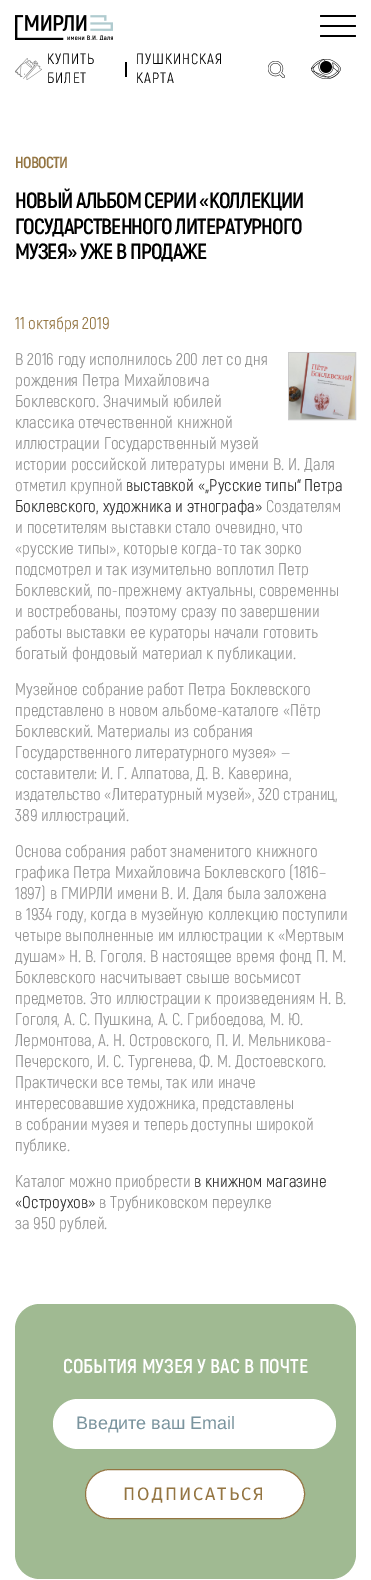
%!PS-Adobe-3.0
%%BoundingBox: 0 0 371 1580
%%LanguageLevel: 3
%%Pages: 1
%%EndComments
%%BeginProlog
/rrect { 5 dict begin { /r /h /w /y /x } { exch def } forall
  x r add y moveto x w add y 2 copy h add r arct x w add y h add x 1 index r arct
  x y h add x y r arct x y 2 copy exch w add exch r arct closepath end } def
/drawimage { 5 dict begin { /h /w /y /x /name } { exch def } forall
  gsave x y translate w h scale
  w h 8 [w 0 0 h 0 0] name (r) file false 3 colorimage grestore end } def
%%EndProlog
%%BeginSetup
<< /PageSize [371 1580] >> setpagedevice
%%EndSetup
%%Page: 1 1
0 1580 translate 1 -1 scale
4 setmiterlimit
1 setgray
0 0 371 1580 rectfill
(images/1.raw) 15 15 98 25 drawimage
0 setgray
320 15 36 2 1 rrect fill
320 25 36 2 1 rrect fill
320 35 36 2 1 rrect fill
(images/2.raw) 15 58 27 22 drawimage
125 62 2 15 rectfill
(images/3.raw) 268 61 17 17 drawimage
(images/4.raw) 311 59 30 20 drawimage
0.8 setgray
288.5 352.5 67 67 rectstroke
(images/5.raw) 289 353 66 66 drawimage
0.627 0.729 0.573 setrgbcolor
15 1304 341 275 25 rrect fill
1 setgray
53 1399 283 50 25 rrect fill
85.5 1469.5 219 49 24.5 rrect gsave fill grestore
0.58 0.459 0.259 setrgbcolor
stroke
/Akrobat-Regular [15 0 0 -15 0 0] selectfont
0 setgray
47 64 moveto 1 0 (КУПИТЬ) ashow
47 83 moveto 1 0 (БИЛЕТ) ashow
136 64 moveto 1 0 (ПУШКИНСКАЯ) ashow
136 83 moveto 1 0 (КАРТА) ashow
/Akrobat-Bold [16 0 0 -16 0 0] selectfont
0.58 0.459 0.259 setrgbcolor
15 168 moveto -0.75 0 (НОВОСТИ) ashow
/Akrobat-Bold [22 0 0 -22 0 0] selectfont
0 setgray
15 208 moveto -1 0 (НОВЫЙ АЛЬБОМ СЕРИИ «КОЛЛЕКЦИИ) ashow
15 234 moveto -1 0 (ГОСУДАРСТВЕННОГО ЛИТЕРАТУРНОГО) ashow
15 259 moveto -1 0 (МУЗЕЯ» УЖЕ В ПРОДАЖЕ) ashow
/Akrobat-Regular [17 0 0 -17 0 0] selectfont
0.58 0.459 0.259 setrgbcolor
15 329 moveto (11 октября 2019) show
0.58 setgray
15 365 moveto (В 2016 году исполнилось 200 лет со дня) show
15 386 moveto (рождения Петра Михайловича) show
15 407 moveto (Боклевского. Значимый юбилей) show
15 428 moveto (классика отечественной книжной) show
15 449 moveto (иллюстрации Государственный музей) show
15 470 moveto (истории российской литературы имени В. И. Даля) show
15 491 moveto (отметил крупной) show
0.2 setgray
126 491 moveto (выставкой «„Русские типы“ Петра) show
15 512 moveto (Боклевского, художника и этнографа») show
0.58 setgray
266 512 moveto (Создателям) show
15 533 moveto (и посетителям выставки стало очевидно, что) show
15 554 moveto («русские типы», которые когда-то так зорко) show
15 575 moveto (подсмотрел и так изумительно воплотил Петр) show
15 596 moveto (Боклевский, по-прежнему актуальны, современны) show
15 617 moveto (и востребованы, поэтому сразу по завершении) show
15 638 moveto (работы выставки ее кураторы начали готовить) show
15 659 moveto (богатый фондовый материал к публикации.) show
15 695 moveto (Музейное собрание работ Петра Боклевского) show
15 716 moveto (представлено в новом альбоме-каталоге «Пётр) show
15 737 moveto (Боклевский. Материалы из собрания) show
15 758 moveto (Государственного литературного музея» —) show
15 779 moveto (составители: И. Г. Алпатова, Д. В. Каверина,) show
15 800 moveto (издательство «Литературный музей», 320 страниц,) show
15 821 moveto (389 иллюстраций.) show
15 857 moveto (Основа собрания работ знаменитого книжного) show
15 878 moveto (графика Петра Михайловича Боклевского \(1816–) show
15 899 moveto (1897\) в ГМИРЛИ имени В. И. Даля была заложена) show
15 920 moveto (в 1934 году, когда в музейную коллекцию поступили) show
15 941 moveto (четыре выполненные им иллюстрации к «Мертвым) show
15 962 moveto (душам» Н. В. Гоголя. В настоящее время фонд П. М.) show
15 983 moveto (Боклевского насчитывает свыше восьмисот) show
15 1004 moveto (предметов. Это иллюстрации к произведениям Н. В.) show
15 1025 moveto (Гоголя, А. С. Пушкина, А. С. Грибоедова, М. Ю.) show
15 1046 moveto (Лермонтова, А. Н. Островского, П. И. Мельникова-) show
15 1067 moveto (Печерского, И. С. Тургенева, Ф. М. Достоевского.) show
15 1088 moveto (Практически все темы, так или иначе) show
15 1109 moveto (интересовавшие художника, представлены) show
15 1130 moveto (в собрании музея и теперь доступны широкой) show
15 1151 moveto (публике.) show
15 1187 moveto (Каталог можно приобрести) show
0.2 setgray
194 1187 moveto (в книжном магазине) show
15 1208 moveto («Остроухов») show
0.58 setgray
99 1208 moveto (в Трубниковском переулке) show
15 1229 moveto (за 950 рублей.) show
/Akrobat-Bold [20 0 0 -20 0 0] selectfont
1 setgray
63 1373 moveto (СОБЫТИЯ МУЗЕЯ У ВАС В ПОЧТЕ) show
/LiberationSans-Regular [18 0 0 -18 0 0] selectfont
0.478 0.58 0.62 setrgbcolor
76 1429 moveto (Введите ваш Email) show
/FiraSans-Regular [18 0 0 -18 0 0] selectfont
0.58 0.459 0.259 setrgbcolor
123 1500 moveto 2 0 (ПОДПИСАТЬСЯ) ashow
showpage
%%EOF
